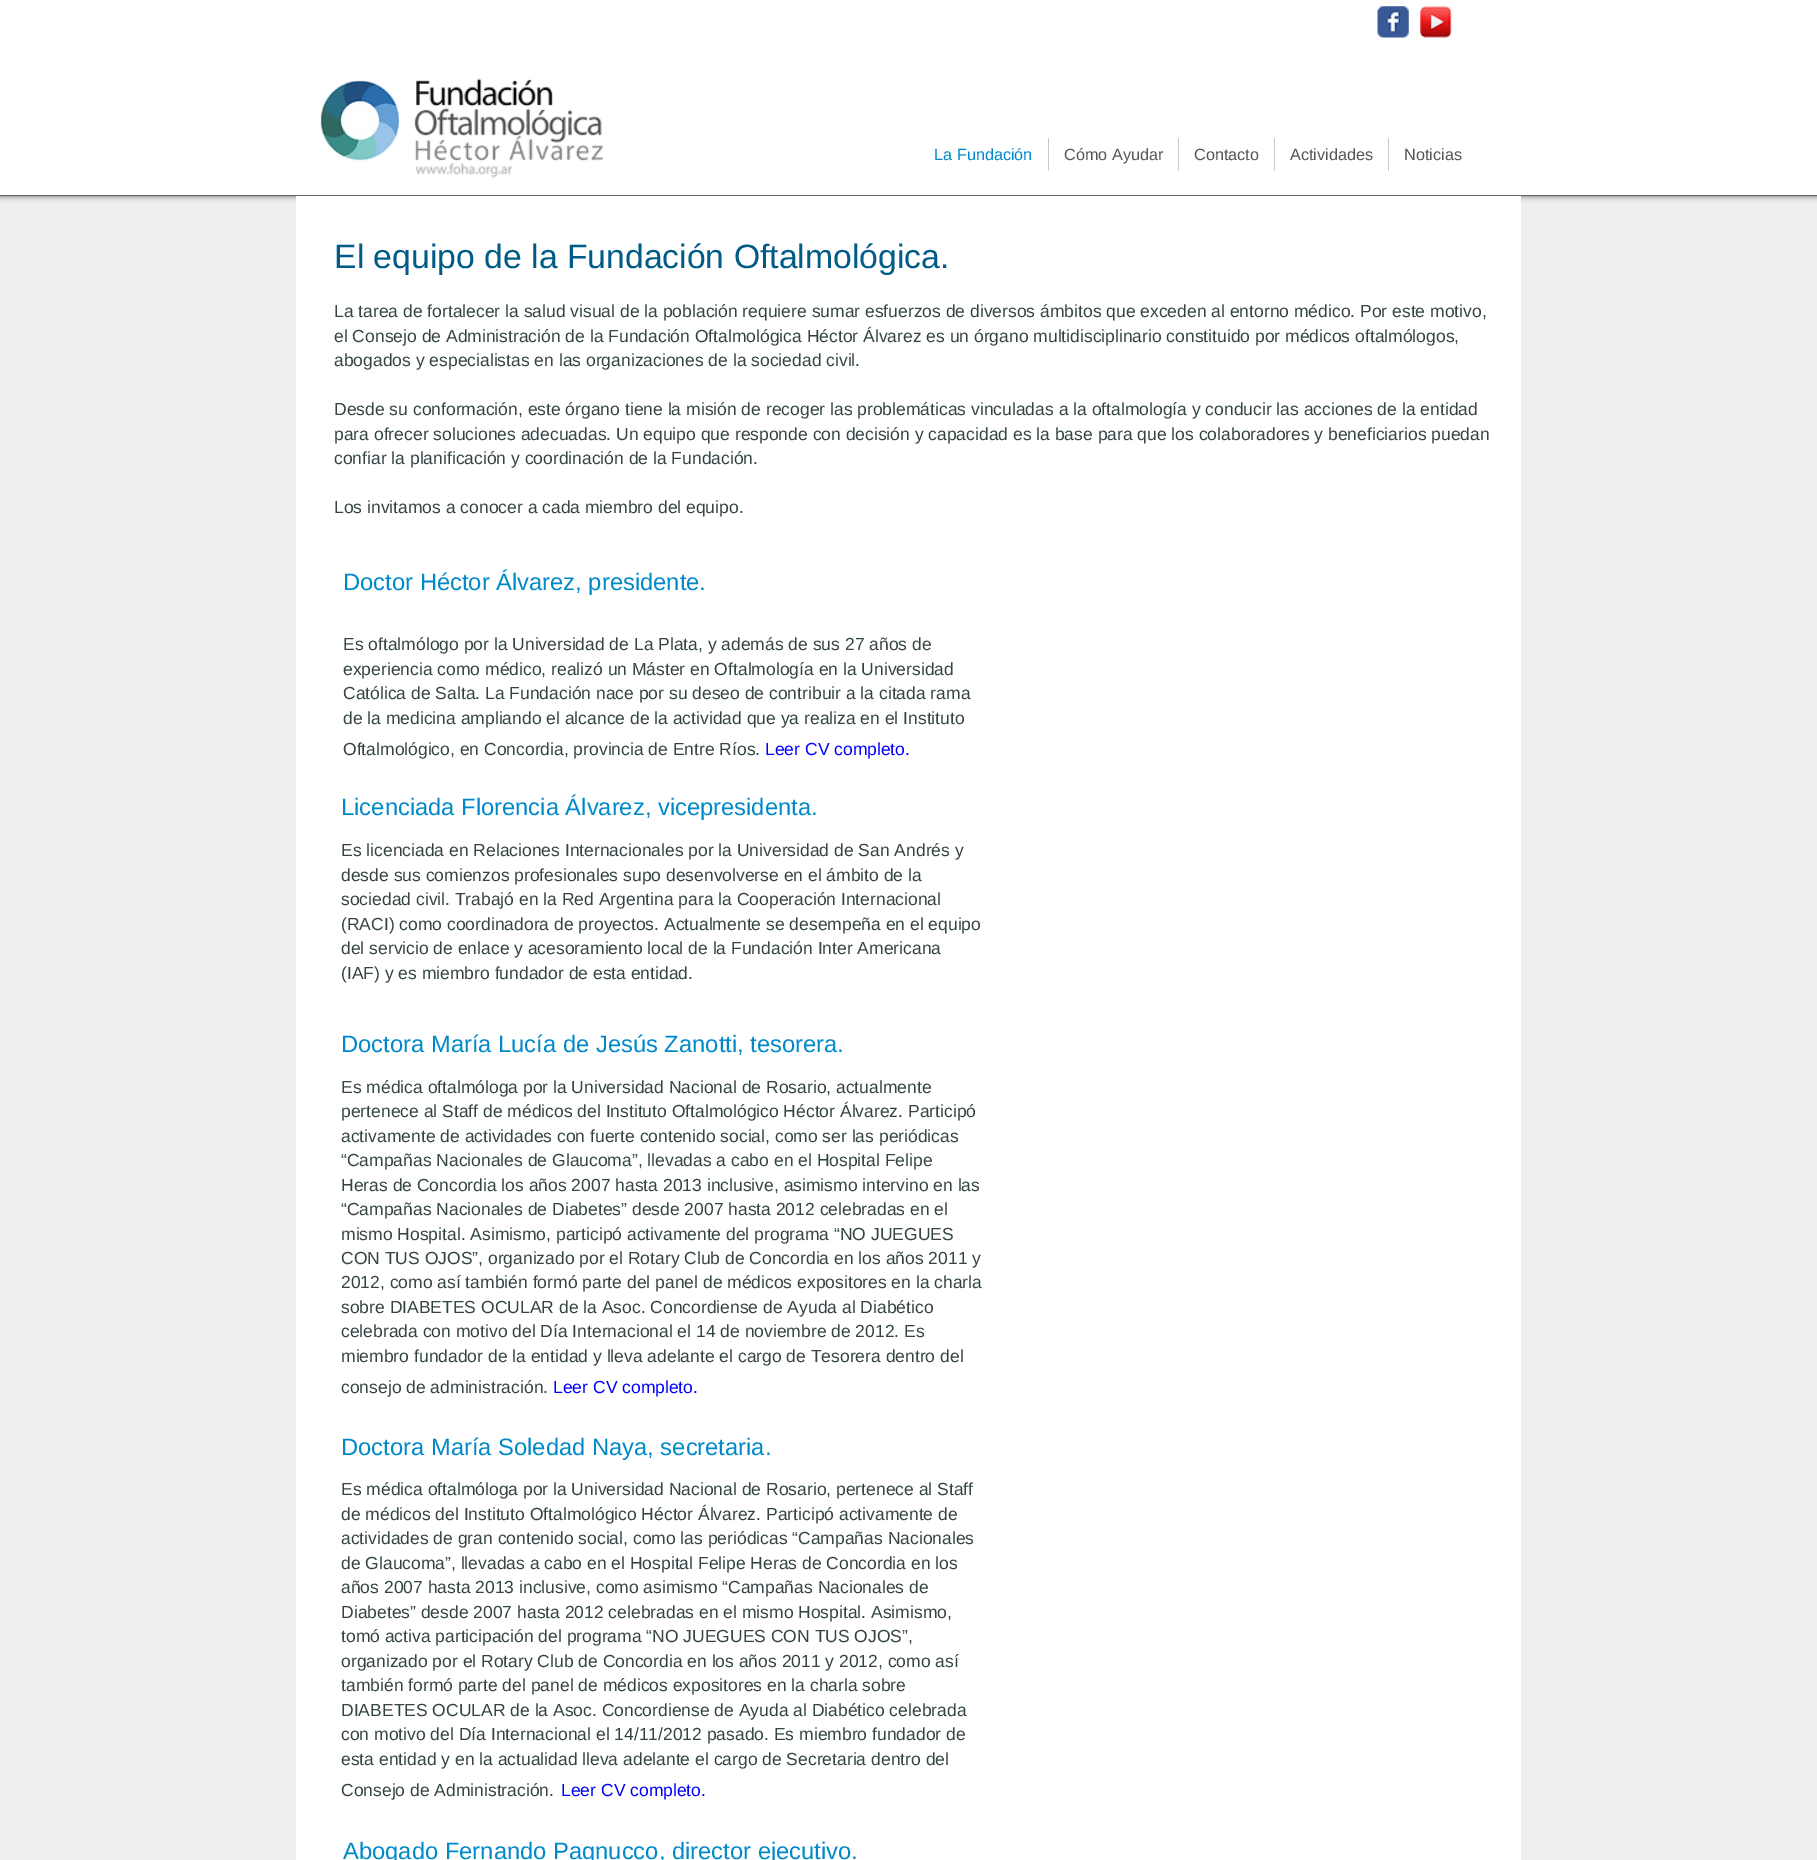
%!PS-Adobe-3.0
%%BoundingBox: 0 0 1817 1860
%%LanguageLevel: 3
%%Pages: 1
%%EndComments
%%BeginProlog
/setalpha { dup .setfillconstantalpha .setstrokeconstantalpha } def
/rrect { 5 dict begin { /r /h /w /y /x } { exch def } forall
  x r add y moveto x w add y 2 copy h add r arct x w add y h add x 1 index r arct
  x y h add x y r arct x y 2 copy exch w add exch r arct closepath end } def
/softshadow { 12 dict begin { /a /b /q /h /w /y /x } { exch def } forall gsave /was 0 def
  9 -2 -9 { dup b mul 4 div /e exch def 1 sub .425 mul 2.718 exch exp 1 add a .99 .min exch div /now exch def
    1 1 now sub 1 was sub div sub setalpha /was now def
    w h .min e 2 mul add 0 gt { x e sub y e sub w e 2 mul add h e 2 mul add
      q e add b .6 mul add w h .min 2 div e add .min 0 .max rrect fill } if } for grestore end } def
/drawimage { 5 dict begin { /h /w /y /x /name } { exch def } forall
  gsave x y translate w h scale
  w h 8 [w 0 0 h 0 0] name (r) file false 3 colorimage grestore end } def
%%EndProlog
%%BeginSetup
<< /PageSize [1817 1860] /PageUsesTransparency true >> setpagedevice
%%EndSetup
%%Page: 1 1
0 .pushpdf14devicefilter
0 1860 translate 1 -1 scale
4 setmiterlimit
0.937 setgray
0 0 1817 1860 rectfill
0 setgray
0 0 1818 196 0 3 0.6 softshadow
1 setgray
0 0 1817 195 rectfill
0.4 setgray
0 195 1817 1 rectfill
(images/1.raw) 1377 6 32 32 drawimage
(images/2.raw) 1420 6 32 32 drawimage
(images/3.raw) 320 78 283 100 drawimage
0.788 setgray
1048 138 1 33 rectfill
1178 138 1 33 rectfill
1274 138 1 33 rectfill
1388 138 1 33 rectfill
1 setgray
296 196 1225 1664 rectfill
/LiberationSans-Regular [16.25 0 0 -16.25 0 0] selectfont
0 0.537 0.788 setrgbcolor
934 160 moveto (La Fundación) show
0.333 setgray
1064 160 moveto (Cómo Ayudar) show
1194 160 moveto (Contacto) show
1290 160 moveto (Actividades) show
1404 160 moveto (Noticias) show
/LiberationSans-Regular [33.75 0 0 -33.75 0 0] selectfont
0 0.357 0.525 setrgbcolor
334 268 moveto (El equipo de la Fundación Oftalmológica.) show
/LiberationSans-Regular [17.5 0 0 -17.5 0 0] selectfont
0.2 0.267 0.263 setrgbcolor
334 317 moveto (La tarea de fortalecer la salud visual de la población requiere sumar esfuerzos de diversos ámbitos que exceden al entorno médico. Por este motivo,) show
334 342 moveto (el Consejo de Administración de la Fundación Oftalmológica Héctor Álvarez es un órgano multidisciplinario constituido por médicos oftalmólogos,) show
334 366 moveto (abogados y especialistas en las organizaciones de la sociedad civil.) show
334 415 moveto (Desde su conformación, este órgano tiene la misión de recoger las problemáticas vinculadas a la oftalmología y conducir las acciones de la entidad) show
334 440 moveto (para ofrecer soluciones adecuadas. Un equipo que responde con decisión y capacidad es la base para que los colaboradores y beneficiarios puedan) show
334 464 moveto (confiar la planificación y coordinación de la Fundación.) show
334 513 moveto (Los invitamos a conocer a cada miembro del equipo.) show
/LiberationSans-Regular [23.75 0 0 -23.75 0 0] selectfont
0 0.537 0.788 setrgbcolor
343 590 moveto (Doctor Héctor Álvarez, presidente.) show
/LiberationSans-Regular [17.5 0 0 -17.5 0 0] selectfont
0.2 0.267 0.263 setrgbcolor
343 650 moveto (Es oftalmólogo por la Universidad de La Plata, y además de sus 27 años de) show
343 675 moveto (experiencia como médico, realizó un Máster en Oftalmología en la Universidad) show
343 699 moveto (Católica de Salta. La Fundación nace por su deseo de contribuir a la citada rama) show
343 724 moveto (de la medicina ampliando el alcance de la actividad que ya realiza en el Instituto) show
343 755 moveto (Oftalmológico, en Concordia, provincia de Entre Ríos.) show
0 0 1 setrgbcolor
765 755 moveto (Leer CV completo.) show
/LiberationSans-Regular [23.75 0 0 -23.75 0 0] selectfont
0 0.537 0.788 setrgbcolor
341 815 moveto (Licenciada Florencia Álvarez, vicepresidenta.) show
/LiberationSans-Regular [17.5 0 0 -17.5 0 0] selectfont
0.2 0.267 0.263 setrgbcolor
341 856 moveto (Es licenciada en Relaciones Internacionales por la Universidad de San Andrés y) show
341 881 moveto (desde sus comienzos profesionales supo desenvolverse en el ámbito de la) show
341 905 moveto (sociedad civil. Trabajó en la Red Argentina para la Cooperación Internacional) show
341 930 moveto (\(RACI\) como coordinadora de proyectos. Actualmente se desempeña en el equipo) show
341 954 moveto (del servicio de enlace y acesoramiento local de la Fundación Inter Americana) show
341 979 moveto (\(IAF\) y es miembro fundador de esta entidad.) show
/LiberationSans-Regular [23.75 0 0 -23.75 0 0] selectfont
0 0.537 0.788 setrgbcolor
341 1052 moveto (Doctora María Lucía de Jesús Zanotti, tesorera.) show
/LiberationSans-Regular [17.5 0 0 -17.5 0 0] selectfont
0.2 0.267 0.263 setrgbcolor
341 1093 moveto (Es médica oftalmóloga por la Universidad Nacional de Rosario, actualmente) show
341 1117 moveto (pertenece al Staff de médicos del Instituto Oftalmológico Héctor Álvarez. Participó) show
341 1142 moveto (activamente de actividades con fuerte contenido social, como ser las periódicas) show
341 1166 moveto (“Campañas Nacionales de Glaucoma”, llevadas a cabo en el Hospital Felipe) show
341 1191 moveto (Heras de Concordia los años 2007 hasta 2013 inclusive, asimismo intervino en las) show
341 1215 moveto (“Campañas Nacionales de Diabetes” desde 2007 hasta 2012 celebradas en el) show
341 1240 moveto (mismo Hospital. Asimismo, participó activamente del programa “NO JUEGUES) show
341 1264 moveto (CON TUS OJOS”, organizado por el Rotary Club de Concordia en los años 2011 y) show
341 1288 moveto (2012, como así también formó parte del panel de médicos expositores en la charla) show
341 1313 moveto (sobre DIABETES OCULAR de la Asoc. Concordiense de Ayuda al Diabético) show
341 1337 moveto (celebrada con motivo del Día Internacional el 14 de noviembre de 2012. Es) show
341 1362 moveto (miembro fundador de la entidad y lleva adelante el cargo de Tesorera dentro del) show
341 1393 moveto (consejo de administración.) show
0 0 1 setrgbcolor
553 1393 moveto (Leer CV completo.) show
/LiberationSans-Regular [23.75 0 0 -23.75 0 0] selectfont
0 0.537 0.788 setrgbcolor
341 1455 moveto (Doctora María Soledad Naya, secretaria.) show
/LiberationSans-Regular [17.5 0 0 -17.5 0 0] selectfont
0.2 0.267 0.263 setrgbcolor
341 1495 moveto (Es médica oftalmóloga por la Universidad Nacional de Rosario, pertenece al Staff) show
341 1520 moveto (de médicos del Instituto Oftalmológico Héctor Álvarez. Participó activamente de) show
341 1544 moveto (actividades de gran contenido social, como las periódicas “Campañas Nacionales) show
341 1569 moveto (de Glaucoma”, llevadas a cabo en el Hospital Felipe Heras de Concordia en los) show
341 1593 moveto (años 2007 hasta 2013 inclusive, como asimismo “Campañas Nacionales de) show
341 1618 moveto (Diabetes” desde 2007 hasta 2012 celebradas en el mismo Hospital. Asimismo,) show
341 1642 moveto (tomó activa participación del programa “NO JUEGUES CON TUS OJOS”,) show
341 1667 moveto (organizado por el Rotary Club de Concordia en los años 2011 y 2012, como así) show
341 1691 moveto (también formó parte del panel de médicos expositores en la charla sobre) show
341 1716 moveto (DIABETES OCULAR de la Asoc. Concordiense de Ayuda al Diabético celebrada) show
341 1740 moveto (con motivo del Día Internacional el 14/11/2012 pasado. Es miembro fundador de) show
341 1765 moveto (esta entidad y en la actualidad lleva adelante el cargo de Secretaria dentro del) show
341 1796 moveto (Consejo de Administración.) show
0 0 1 setrgbcolor
561 1796 moveto (Leer CV completo.) show
/LiberationSans-Regular [23.75 0 0 -23.75 0 0] selectfont
0 0.537 0.788 setrgbcolor
343 1859 moveto (Abogado Fernando Pagnucco, director ejecutivo.) show
.poppdf14devicefilter showpage
%%EOF
